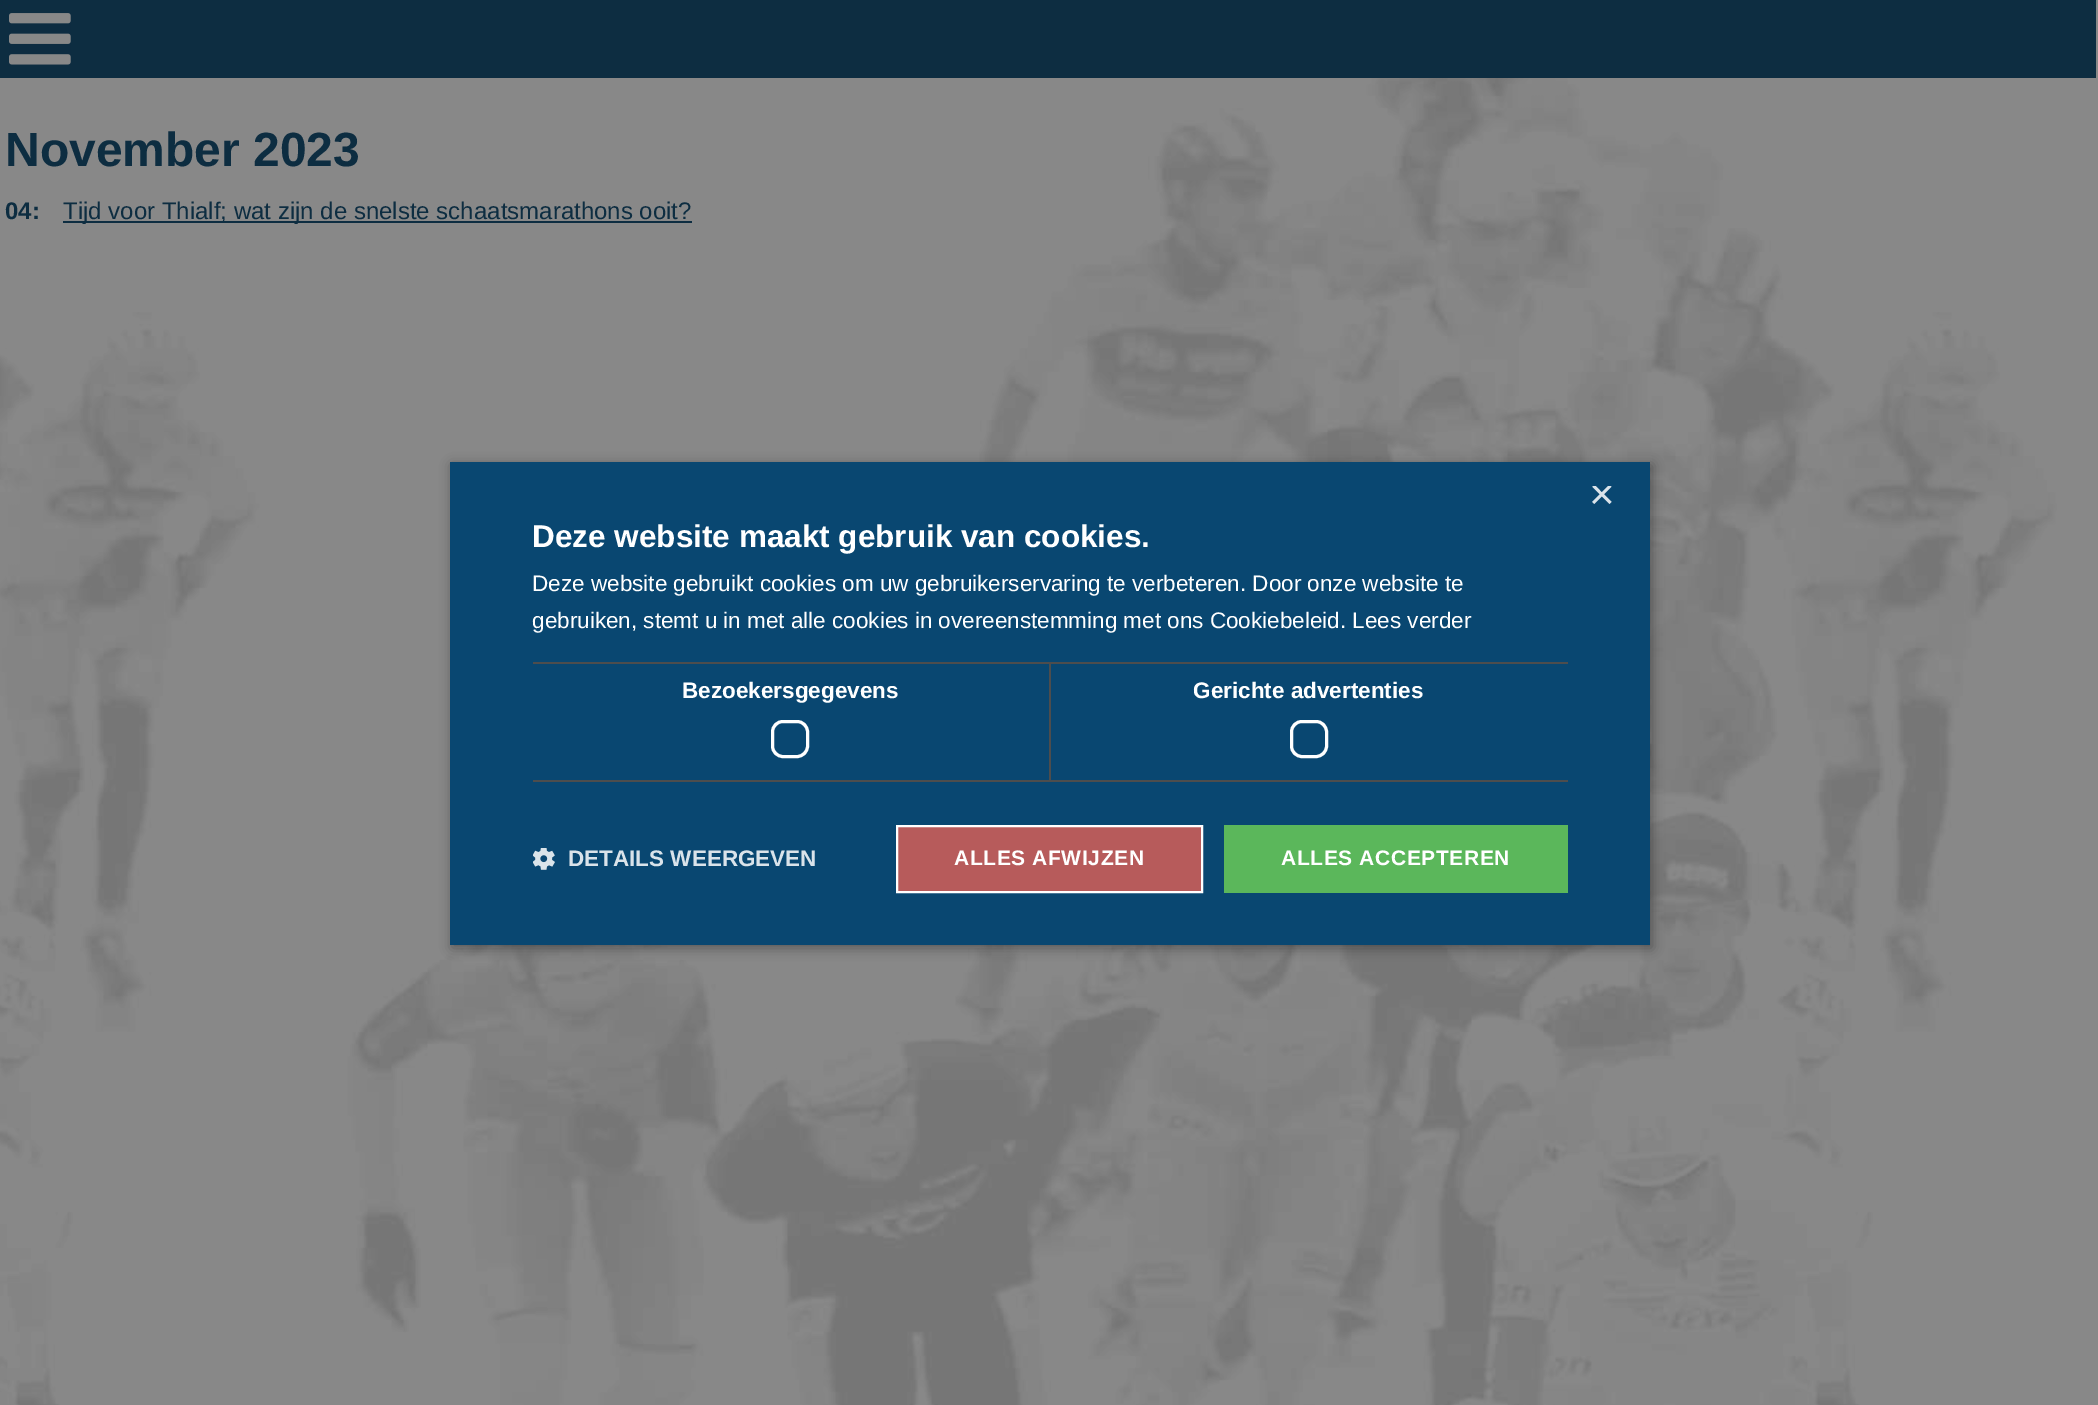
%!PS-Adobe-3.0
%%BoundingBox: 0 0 2098 1405
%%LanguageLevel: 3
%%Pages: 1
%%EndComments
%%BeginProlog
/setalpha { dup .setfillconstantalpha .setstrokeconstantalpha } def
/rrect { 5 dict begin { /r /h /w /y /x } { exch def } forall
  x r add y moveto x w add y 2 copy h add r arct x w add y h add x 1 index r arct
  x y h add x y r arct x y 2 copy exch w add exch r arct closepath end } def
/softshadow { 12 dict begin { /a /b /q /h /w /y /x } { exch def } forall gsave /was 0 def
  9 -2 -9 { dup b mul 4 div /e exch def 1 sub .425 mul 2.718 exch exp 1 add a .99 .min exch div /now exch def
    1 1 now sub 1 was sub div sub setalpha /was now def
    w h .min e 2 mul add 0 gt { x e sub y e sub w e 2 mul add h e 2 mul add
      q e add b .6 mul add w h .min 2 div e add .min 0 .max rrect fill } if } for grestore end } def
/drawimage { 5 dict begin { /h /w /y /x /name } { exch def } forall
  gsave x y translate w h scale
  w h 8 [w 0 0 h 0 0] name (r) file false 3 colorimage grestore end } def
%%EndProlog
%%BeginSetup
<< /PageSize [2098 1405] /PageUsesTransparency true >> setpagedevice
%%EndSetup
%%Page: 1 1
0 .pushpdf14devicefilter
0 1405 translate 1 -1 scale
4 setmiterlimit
0.533 setgray
0 0 2098 1405 rectfill
(images/1.raw) 0 78 2057 1327 drawimage
0.051 0.176 0.255 setrgbcolor
0 0 2096 78 rectfill
(images/2.raw) 9 13 62 52 drawimage
63 221 629 2 rectfill
0 setgray
452 465 1200 483 0 6 0.35 softshadow
0.035 0.278 0.443 setrgbcolor
450 462 1200 483 rectfill
0.302 setgray
533 662 517 2 rectfill
1049 662 2 120 rectfill
533 780 1035 2 rectfill
1 setgray
3 setlinewidth
772.5 721.5 35 35 10.5 rrect stroke
0.302 setgray
1050 662 518 2 rectfill
1 setgray
1291.5 721.5 35 35 10.5 rrect stroke
(images/3.raw) 533 848 22 22 drawimage
0.718 0.357 0.357 setrgbcolor
newpath 897 826 moveto 1202 826 lineto 1202 892 lineto 897 892 lineto closepath gsave fill grestore
1 setgray
2 setlinewidth
stroke
0.357 0.718 0.357 setrgbcolor
1224 825 344 68 rectfill
/LiberationSans-Bold [48 0 0 -48 0 0] selectfont
0.051 0.176 0.255 setrgbcolor
5 166 moveto (November 2023) show
/LiberationSans-Bold [24 0 0 -24 0 0] selectfont
5 219 moveto (04:) show
/LiberationSans-Regular [24 0 0 -24 0 0] selectfont
63 219 moveto (Tijd voor Thialf; wat zijn de snelste schaatsmarathons ooit?) show
gsave
1590 486 23 23 rectclip
/LiberationSans-Regular [44 0 0 -44 0 0] selectfont
0.855 0.89 0.918 setrgbcolor
1589 509 moveto (×) show
grestore
/LiberationSans-Bold [31.5 0 0 -31.5 0 0] selectfont
1 setgray
532 547 moveto (Deze website maakt gebruik van cookies.) show
/LiberationSans-Regular [22.5 0 0 -22.5 0 0] selectfont
532 591 moveto (Deze website gebruikt cookies om uw gebruikerservaring te verbeteren. Door onze website te) show
532 628 moveto (gebruiken, stemt u in met alle cookies in overeenstemming met ons Cookiebeleid. Lees verder) show
/LiberationSans-Bold [22.5 0 0 -22.5 0 0] selectfont
682 698 moveto (Bezoekersgegevens) show
1193 698 moveto (Gerichte advertenties) show
0.855 0.89 0.918 setrgbcolor
568 866 moveto (DETAILS WEERGEVEN) show
/LiberationSans-Bold [21 0 0 -21 0 0] selectfont
1 setgray
954 865 moveto 0.6 0 (ALLES AFWIJZEN) ashow
1281 865 moveto 0.6 0 (ALLES ACCEPTEREN) ashow
.poppdf14devicefilter showpage
%%EOF
